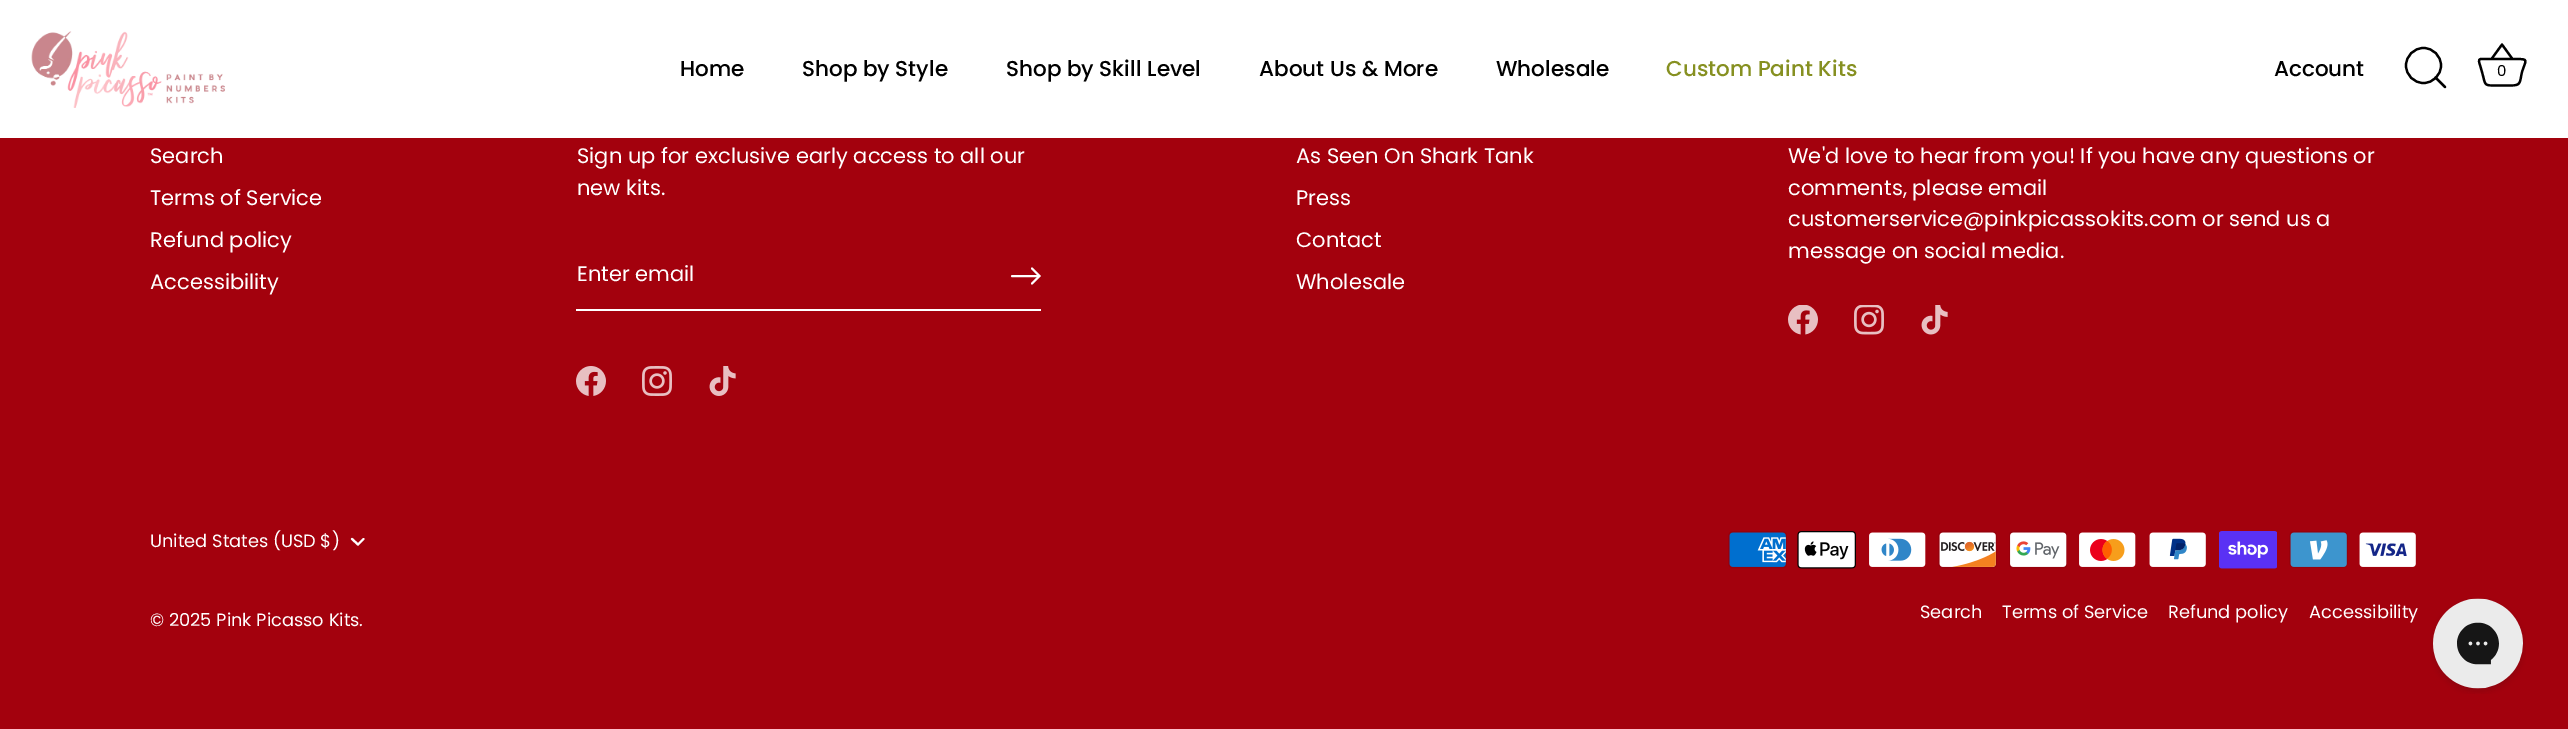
%!PS-Adobe-3.0
%%BoundingBox: 0 0 2568 729
%%LanguageLevel: 3
%%Pages: 1
%%EndComments
%%BeginProlog
/drawimage { 5 dict begin { /h /w /y /x /name } { exch def } forall
  gsave x y translate w h scale
  w h 8 [w 0 0 h 0 0] name (r) file false 3 colorimage grestore end } def
%%EndProlog
%%BeginSetup
<< /PageSize [2568 729] >> setpagedevice
%%EndSetup
%%Page: 1 1
0 729 translate 1 -1 scale
4 setmiterlimit
0.639 0.004 0.051 setrgbcolor
0 0 2568 729 rectfill
1 setgray
0 0 2568 138 rectfill
(images/1.raw) 31 31 194 77 drawimage
0 setgray
2.2 setlinewidth
newpath 2423.5 65.5 17.5 0 360 arc closepath stroke
1 setlinecap
1 setlinejoin
newpath 2445 87 moveto 2435.5 77.5 lineto stroke
0 setlinecap
newpath 2481 59 moveto 2477.5 59 2479.5 63.5 2480 65 curveto 2482 72 lineto 2486 86 2483 85.5 2497.5 85.5 curveto 2510.5 85.5 lineto 2521.5 85.5 2519.5 82.5 2522 72 curveto 2526 59.5 2529 59 2516 59 curveto 2481 59 lineto 2491.5 59 moveto 2502 44.5 lineto 2512.5 59 lineto stroke
1 setgray
576 309 465 2 rectfill
1.9 setlinewidth
1 setlinecap
0 setlinejoin
newpath 1032 283.5 moveto 1039.5 276 lineto 1032 268.5 lineto stroke
1 setlinejoin
newpath 1038.5 276 moveto 1012 276 lineto stroke
(images/2.raw) 576 366 30 30 drawimage
(images/3.raw) 642 366 30 30 drawimage
(images/4.raw) 709 366 27 30 drawimage
(images/5.raw) 1788 305 30 30 drawimage
(images/6.raw) 1854 305 30 30 drawimage
(images/7.raw) 1921 305 27 30 drawimage
2.1 setlinewidth
0 setlinejoin
newpath 352 539 moveto 358 544.5 lineto 363.5 539 lineto stroke
(images/8.raw) 1728 531 59 38 drawimage
(images/9.raw) 1797 531 59 38 drawimage
(images/10.raw) 1869 532 57 35 drawimage
(images/11.raw) 1938 531 59 38 drawimage
(images/12.raw) 2009 531 58 38 drawimage
(images/13.raw) 2079 532 57 35 drawimage
(images/14.raw) 2149 532 57 35 drawimage
(images/15.raw) 2219 531 58 38 drawimage
(images/16.raw) 2289 531 59 37 drawimage
(images/17.raw) 2359 532 57 35 drawimage
(images/18.raw) 2430 598 96 96 drawimage
/Poppins-Medium [21.5 0 0 -21.5 0 0] selectfont
0 setgray
680 76 moveto (Home) show
802 76 moveto (Shop by Style) show
1006 76 moveto (Shop by Skill Level) show
1259 76 moveto (About Us & More) show
1496 76 moveto (Wholesale) show
0.525 0.565 0.129 setrgbcolor
1666 76 moveto (Custom Paint Kits) show
0 setgray
2274 76 moveto (Account) show
/Poppins-Regular [15 0 0 -15 0 0] selectfont
2497 76 moveto (0) show
/Poppins-Regular [21 0 0 -21 0 0] selectfont
1 setgray
150 163 moveto (Search) show
150 205 moveto (Terms of Service) show
150 247 moveto (Refund policy) show
150 289 moveto (Accessibility) show
577 163 moveto (Sign up for exclusive early access to all our) show
577 195 moveto (new kits.) show
577 281 moveto (Enter email) show
1296 163 moveto (As Seen On Shark Tank) show
1296 205 moveto (Press) show
1296 247 moveto (Contact) show
1296 289 moveto (Wholesale) show
1788 163 moveto (We'd love to hear from you! If you have any questions or) show
1788 195 moveto (comments, please email) show
1788 226 moveto (customerservice@pinkpicassokits.com or send us a) show
1788 258 moveto (message on social media.) show
/Poppins-Regular [17.8 0 0 -17.8 0 0] selectfont
150 547 moveto (United States \(USD $\)) show
150 626 moveto (© 2025 Pink Picasso Kits.) show
1920 618 moveto (Search) show
2002 618 moveto (Terms of Service) show
2168 618 moveto (Refund policy) show
2309 618 moveto (Accessibility) show
showpage
%%EOF
